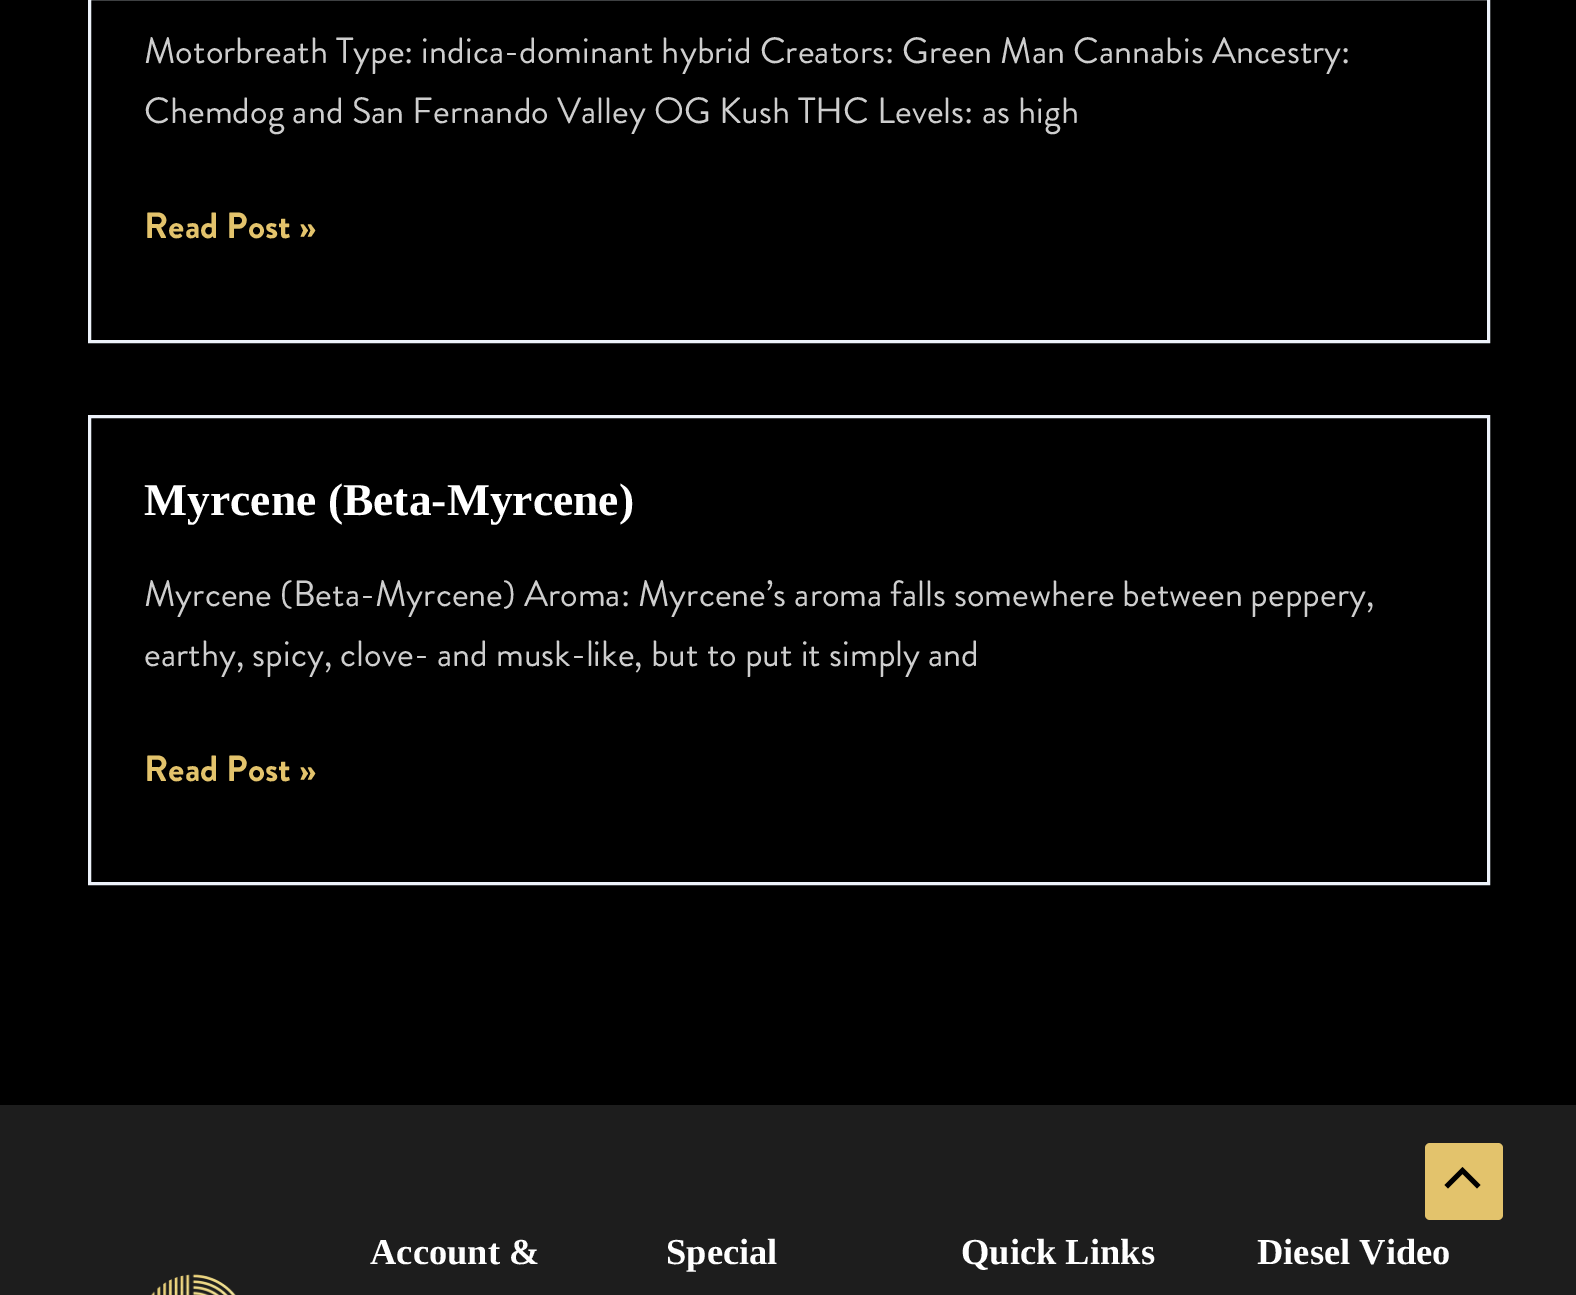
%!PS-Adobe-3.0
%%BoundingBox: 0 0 1576 1295
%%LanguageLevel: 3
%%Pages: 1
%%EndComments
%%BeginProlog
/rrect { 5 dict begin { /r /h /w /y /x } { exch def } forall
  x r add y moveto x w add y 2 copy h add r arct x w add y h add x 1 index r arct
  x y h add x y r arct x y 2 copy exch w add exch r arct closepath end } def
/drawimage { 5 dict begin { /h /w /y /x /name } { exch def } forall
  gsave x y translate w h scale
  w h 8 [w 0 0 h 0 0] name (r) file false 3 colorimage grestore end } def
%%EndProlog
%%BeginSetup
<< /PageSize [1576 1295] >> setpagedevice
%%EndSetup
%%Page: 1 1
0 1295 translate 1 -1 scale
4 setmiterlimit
0 setgray
0 0 1576 1295 rectfill
0.929 0.949 0.98 setrgbcolor
3 setlinewidth
89.5 -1.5 1399 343 rectstroke
89.5 416.5 1399 467 rectstroke
0.114 setgray
0 1105 1576 190 rectfill
(images/1.raw) 151 1274 85 21 drawimage
0.89 0.765 0.424 setrgbcolor
1425 1143 78 77 5 rrect fill
0 setgray
newpath 1480.5 1185 moveto 1462.5 1167 lineto 1444.5 1185 lineto 1448 1188.5 lineto 1462.5 1174 lineto 1477 1188.5 lineto closepath fill
/BrandonGrotesque-Regular [36.5 0 0 -36.5 0 0] selectfont
0.808 setgray
144 63 moveto -0.25 0 32 (Motorbreath Type: indica-dominant hybrid Creators: Green Man Cannabis Ancestry:) widthshow
144 123 moveto (Chemdog and San Fernando Valley OG Kush THC Levels: as high) show
/BrandonGrotesque-Bold [36.5 0 0 -36.5 0 0] selectfont
0.89 0.765 0.424 setrgbcolor
144 238 moveto (Read Post ») show
/LiberationSerif-Bold [45.6 0 0 -45.6 0 0] selectfont
1 setgray
144 515 moveto (Myrcene \(Beta-Myrcene\)) show
/BrandonGrotesque-Regular [36.5 0 0 -36.5 0 0] selectfont
0.808 setgray
144 606 moveto -0.25 0 32 (Myrcene \(Beta-Myrcene\) Aroma: Myrcene’s aroma falls somewhere between peppery,) widthshow
144 666 moveto (earthy, spicy, clove- and musk-like, but to put it simply and) show
/BrandonGrotesque-Bold [36.5 0 0 -36.5 0 0] selectfont
0.89 0.765 0.424 setrgbcolor
144 781 moveto (Read Post ») show
/LiberationSerif-Bold [36.5 0 0 -36.5 0 0] selectfont
1 setgray
370 1264 moveto (Account &) show
666 1264 moveto (Special) show
961 1264 moveto (Quick Links) show
1257 1264 moveto (Diesel Video) show
showpage
%%EOF
